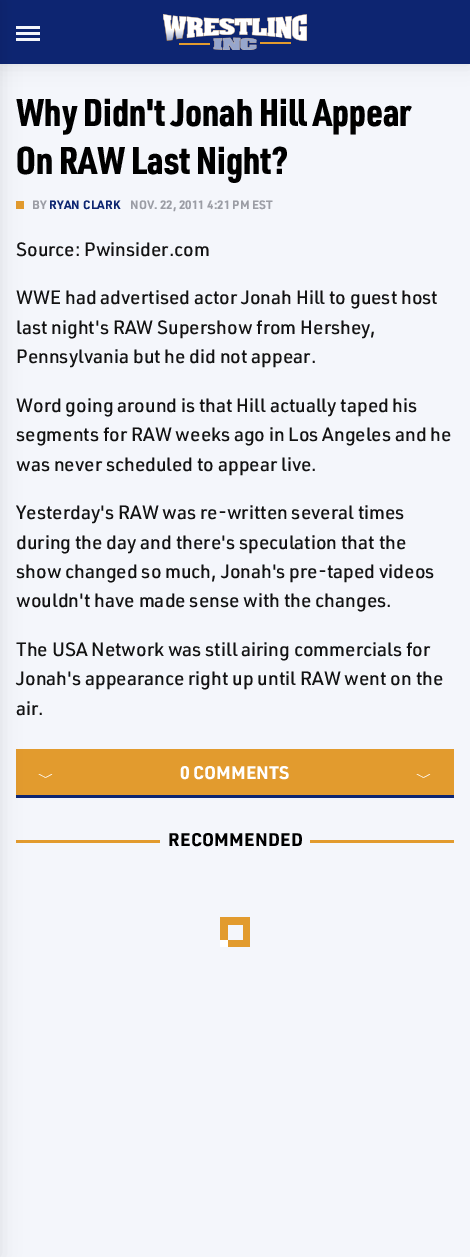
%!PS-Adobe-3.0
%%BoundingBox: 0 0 470 1257
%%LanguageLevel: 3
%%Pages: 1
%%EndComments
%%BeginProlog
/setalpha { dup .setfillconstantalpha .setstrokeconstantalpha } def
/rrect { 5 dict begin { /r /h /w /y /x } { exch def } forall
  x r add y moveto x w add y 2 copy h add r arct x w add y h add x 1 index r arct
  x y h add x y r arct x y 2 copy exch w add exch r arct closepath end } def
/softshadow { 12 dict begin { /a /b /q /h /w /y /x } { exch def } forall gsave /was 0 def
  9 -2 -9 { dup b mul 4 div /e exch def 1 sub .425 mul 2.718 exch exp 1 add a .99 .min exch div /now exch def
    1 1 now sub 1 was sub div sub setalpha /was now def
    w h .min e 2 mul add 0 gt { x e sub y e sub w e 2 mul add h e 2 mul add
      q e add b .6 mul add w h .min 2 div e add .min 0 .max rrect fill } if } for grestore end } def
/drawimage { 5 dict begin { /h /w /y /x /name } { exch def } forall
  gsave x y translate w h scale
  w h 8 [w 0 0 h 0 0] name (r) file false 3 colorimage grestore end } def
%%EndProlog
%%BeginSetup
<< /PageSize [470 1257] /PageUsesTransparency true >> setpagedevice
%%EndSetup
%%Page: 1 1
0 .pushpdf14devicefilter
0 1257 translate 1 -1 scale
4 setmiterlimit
0.957 0.965 0.984 setrgbcolor
0 0 470 1257 rectfill
0 setgray
0 0 470 64 0 10 0.1 softshadow
0.051 0.145 0.443 setrgbcolor
0 0 470 64 rectfill
0.957 0.965 0.984 setrgbcolor
16 26 24 3 rectfill
16 32 24 3 rectfill
16 38 24 3 rectfill
0.886 0.608 0.18 setrgbcolor
16 201 8 8 rectfill
16 749 438 46 rectfill
0.051 0.145 0.443 setrgbcolor
16 795 438 3 rectfill
0.886 0.608 0.18 setrgbcolor
16 840 144 3 rectfill
0 setgray
-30 0 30 1257 0 10 0.1 softshadow
(images/1.raw) 163 14 144 36 drawimage
0.886 0.608 0.18 setrgbcolor
310 840 144 3 rectfill
(images/2.raw) 220 917 30 30 drawimage
/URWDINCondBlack-Black [38 0 0 -38 0 0] selectfont
0 setgray
16 126 moveto (Why Didn't Jonah Hill Appear) show
16 174 moveto (On RAW Last Night?) show
/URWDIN-Bold [12 0 0 -12 0 0] selectfont
0.608 0.616 0.647 setrgbcolor
32 209 moveto (BY) show
0.051 0.145 0.443 setrgbcolor
49 209 moveto 0.25 0 (RYAN CLARK) ashow
0.608 0.616 0.647 setrgbcolor
130 209 moveto (NOV. 22, 2011 4:21 PM EST) show
/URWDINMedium-Medium [19 0 0 -19 0 0] selectfont
0.071 setgray
16 256 moveto (Source: Pwinsider.com) show
16 304 moveto (WWE had advertised actor Jonah Hill to guest host) show
16 334 moveto (last night's RAW Supershow from Hershey,) show
16 363 moveto (Pennsylvania but he did not appear.) show
16 412 moveto (Word going around is that Hill actually taped his) show
16 441 moveto (segments for RAW weeks ago in Los Angeles and he) show
16 471 moveto (was never scheduled to appear live.) show
16 519 moveto (Yesterday's RAW was re-written several times) show
16 549 moveto (during the day and there's speculation that the) show
16 578 moveto (show changed so much, Jonah's pre-taped videos) show
16 607 moveto (wouldn't have made sense with the changes.) show
16 656 moveto (The USA Network was still airing commercials for) show
16 685 moveto (Jonah's appearance right up until RAW went on the) show
16 715 moveto (air.) show
/URWDIN-Bold [18 0 0 -18 0 0] selectfont
1 setgray
180 779 moveto (0 COMMENTS) show
/WenQuanYiZenHei-Medium [16 0 0 -16 0 0] selectfont
38 783 moveto (﹀) show
416 783 moveto (﹀) show
/URWDIN-Bold [18 0 0 -18 0 0] selectfont
0 setgray
168 846 moveto 0.25 0 (RECOMMENDED) ashow
.poppdf14devicefilter showpage
%%EOF
